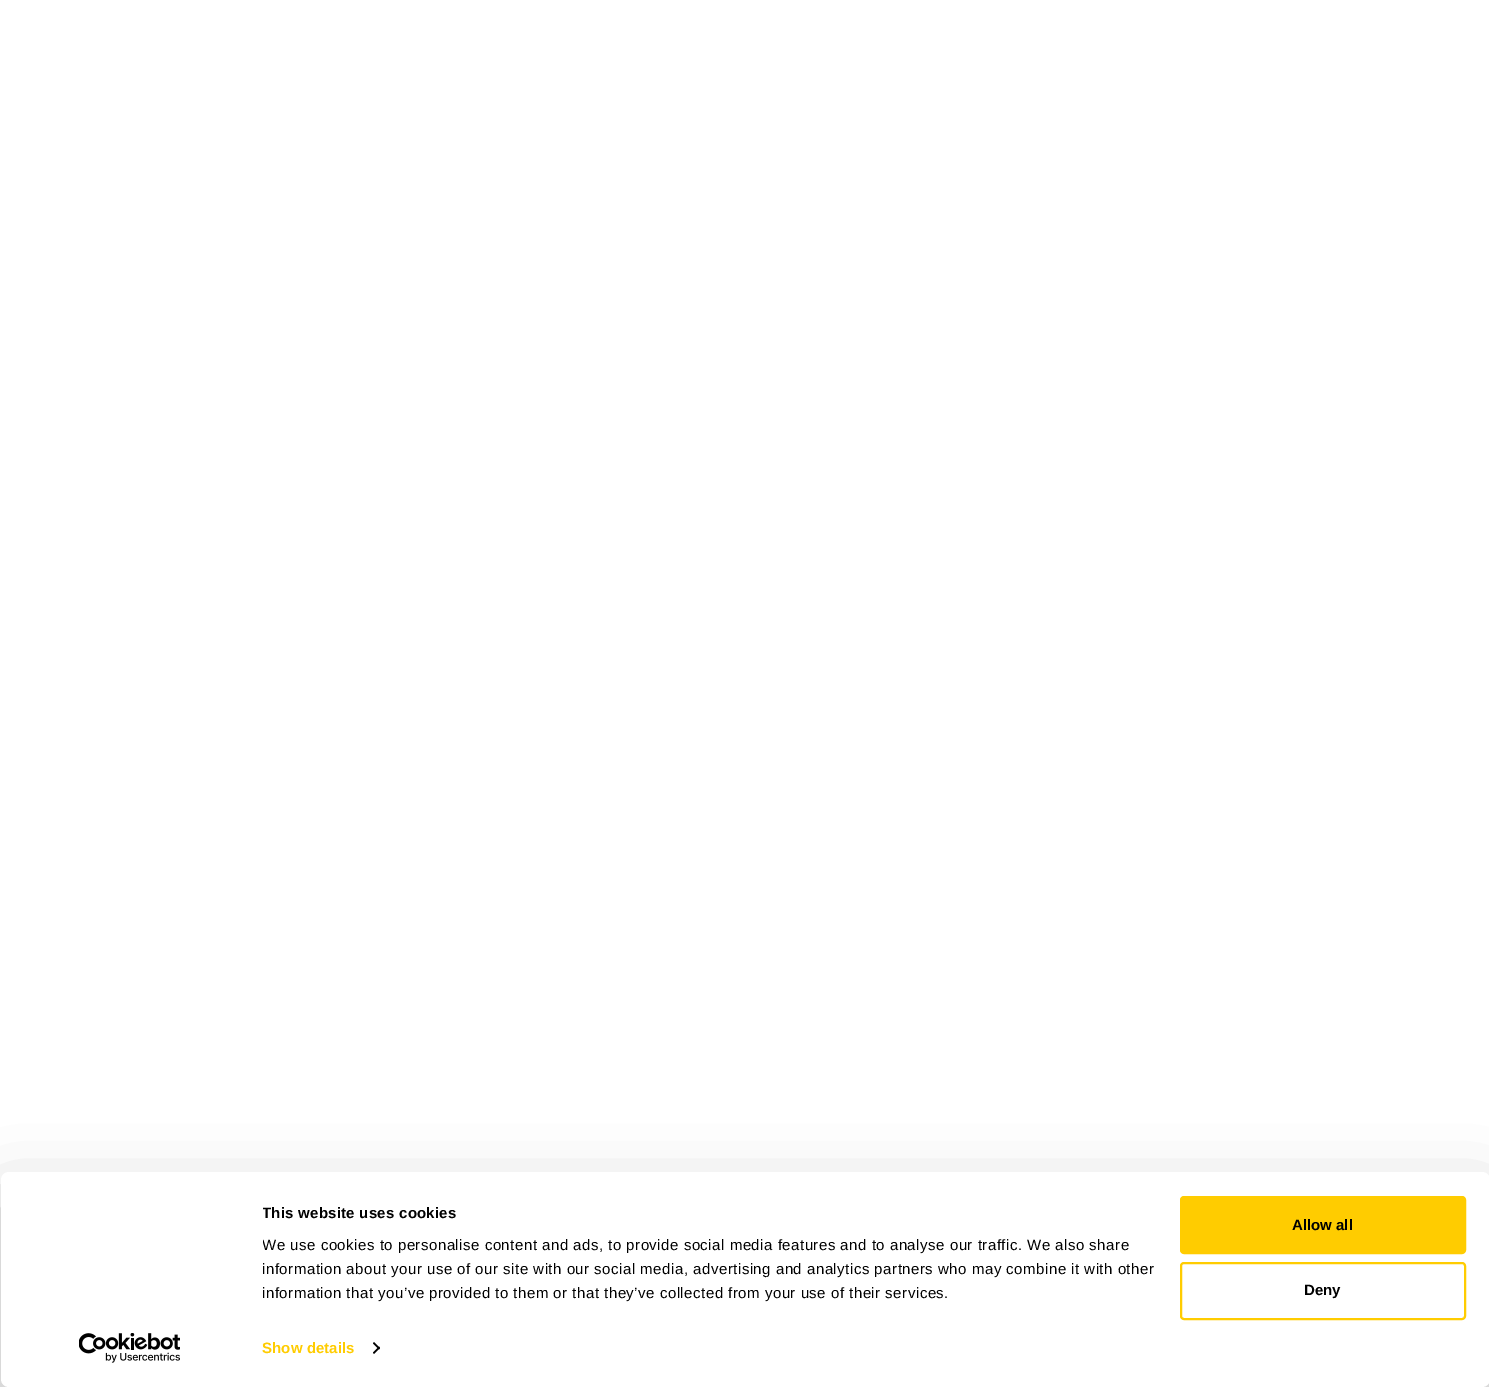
%!PS-Adobe-3.0
%%BoundingBox: 0 0 1489 1387
%%LanguageLevel: 3
%%Pages: 1
%%EndComments
%%BeginProlog
/setalpha { dup .setfillconstantalpha .setstrokeconstantalpha } def
/rrect { 5 dict begin { /r /h /w /y /x } { exch def } forall
  x r add y moveto x w add y 2 copy h add r arct x w add y h add x 1 index r arct
  x y h add x y r arct x y 2 copy exch w add exch r arct closepath end } def
/softshadow { 12 dict begin { /a /b /q /h /w /y /x } { exch def } forall gsave /was 0 def
  9 -2 -9 { dup b mul 4 div /e exch def 1 sub .425 mul 2.718 exch exp 1 add a .99 .min exch div /now exch def
    1 1 now sub 1 was sub div sub setalpha /was now def
    w h .min e 2 mul add 0 gt { x e sub y e sub w e 2 mul add h e 2 mul add
      q e add b .6 mul add w h .min 2 div e add .min 0 .max rrect fill } if } for grestore end } def
/drawimage { 5 dict begin { /h /w /y /x /name } { exch def } forall
  gsave x y translate w h scale
  w h 8 [w 0 0 h 0 0] name (r) file false 3 colorimage grestore end } def
%%EndProlog
%%BeginSetup
<< /PageSize [1489 1387] /PageUsesTransparency true >> setpagedevice
%%EndSetup
%%Page: 1 1
0 .pushpdf14devicefilter
0 1387 translate 1 -1 scale
4 setmiterlimit
1 setgray
0 0 1489 1387 rectfill
0 setgray
1 1202 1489 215 8 35 0.3 softshadow
1 setgray
1 1172 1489 215 8 rrect fill
0 setgray
newpath 374 1342 moveto 380 1348 lineto 379 1349.5 lineto 373 1343.5 lineto closepath fill
newpath 379 1346.5 moveto 380 1348 lineto 374 1354 lineto 373 1352.5 lineto closepath fill
1 0.8 0 setrgbcolor
1181 1197 284 56 3 rrect gsave fill grestore
2 setlinewidth
stroke
1181 1263 284 56 3 rrect stroke
(images/1.raw) 79 1333 101 30 drawimage
gsave
263 1202 911 103 rectclip
/LiberationSans-Bold [15 0 0 -15 0 0] selectfont
0 setgray
262 1218 moveto 0.25 0 (This website uses cookies) ashow
/LiberationSans-Regular [15 0 0 -15 0 0] selectfont
262 1250 moveto 0.5 0 (We use cookies to personalise content and ads, to provide social media features and to analyse our traffic. We also share) ashow
grestore
/LiberationSans-Regular [15 0 0 -15 0 0] selectfont
0 setgray
262 1274 moveto 0.5 0 (information about your use of our site with our social media, advertising and analytics partners who may combine it with other) ashow
262 1298 moveto 0.5 0 (information that you’ve provided to them or that they’ve collected from your use of their services.) ashow
/LiberationSans-Bold [15 0 0 -15 0 0] selectfont
1 0.8 0 setrgbcolor
262 1353 moveto 0.1 0 (Show details) ashow
0 setgray
1292 1230 moveto (Allow all) show
1304 1295 moveto (Deny) show
.poppdf14devicefilter showpage
%%EOF
